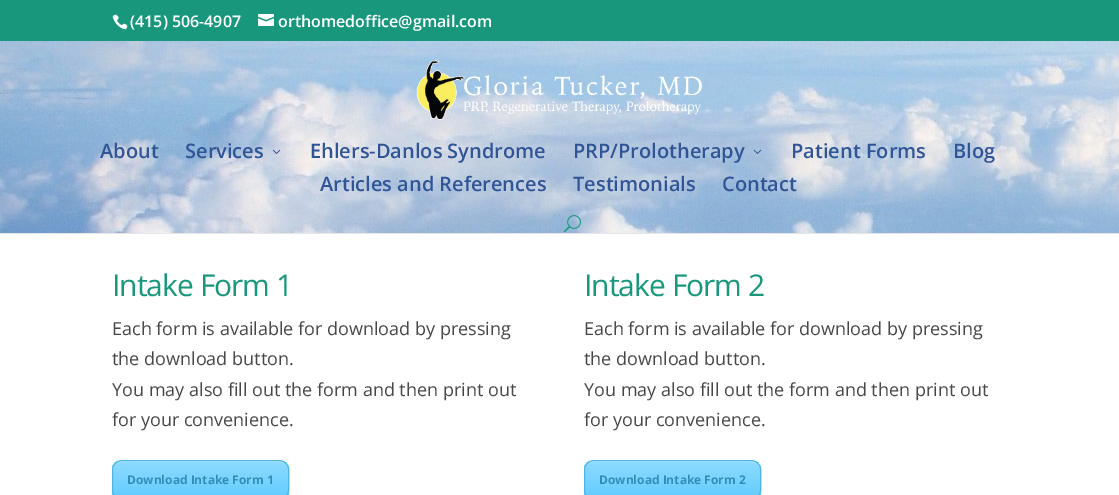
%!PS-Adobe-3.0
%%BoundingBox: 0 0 1119 495
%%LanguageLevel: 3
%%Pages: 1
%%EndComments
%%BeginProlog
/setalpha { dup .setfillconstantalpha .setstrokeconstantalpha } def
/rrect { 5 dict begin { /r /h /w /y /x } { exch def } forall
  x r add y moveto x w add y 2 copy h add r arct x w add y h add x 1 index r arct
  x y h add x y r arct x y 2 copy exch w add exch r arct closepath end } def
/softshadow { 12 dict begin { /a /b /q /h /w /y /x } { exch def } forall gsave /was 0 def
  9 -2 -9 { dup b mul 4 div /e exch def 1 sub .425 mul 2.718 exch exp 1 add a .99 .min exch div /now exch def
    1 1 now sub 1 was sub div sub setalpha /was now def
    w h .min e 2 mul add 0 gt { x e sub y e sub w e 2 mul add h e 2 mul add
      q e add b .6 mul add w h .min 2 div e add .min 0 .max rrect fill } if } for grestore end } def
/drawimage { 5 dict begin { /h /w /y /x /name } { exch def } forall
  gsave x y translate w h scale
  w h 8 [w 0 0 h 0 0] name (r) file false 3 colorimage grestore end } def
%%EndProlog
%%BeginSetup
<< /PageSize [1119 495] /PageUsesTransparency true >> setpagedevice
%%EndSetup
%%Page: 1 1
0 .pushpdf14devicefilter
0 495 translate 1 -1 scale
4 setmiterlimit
1 setgray
0 0 1119 495 rectfill
0.094 0.592 0.486 setrgbcolor
0 0 1119 41 rectfill
(images/1.raw) 112 14 16 16 drawimage
(images/2.raw) 258 14 16 12 drawimage
0.902 setgray
0 233 1119 1 rectfill
(images/3.raw) 0 41 1119 192 drawimage
(images/4.raw) 416 59 286 61 drawimage
(images/5.raw) 272 149 9 5 drawimage
(images/6.raw) 753 149 9 5 drawimage
(images/7.raw) 564 215 17 18 drawimage
0 setgray
113 461 177 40 10 0.5 0.1 softshadow
gsave
112 460 177 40 10 rrect clip newpath
gsave newpath 112 461 moveto 289 461 lineto 289 495 lineto 112 495 lineto closepath clip newpath
<< /ShadingType 2 /ColorSpace /DeviceRGB /Coords [201 461 201 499] /Extend [true true] /Function << /FunctionType 2 /Domain [0 1] /C0 [0.557 0.859 1] /C1 [0.376 0.804 1] /N 1 >> >> shfill grestore
grestore
0.4 setalpha
1 setgray
newpath 122 462 moveto 279 462 lineto 284 462 288 466 288 471 curveto 288 455 260 461 253 461 curveto 148 461 lineto 141 461 113 455 113 471 curveto 113 466 117 462 122 462 curveto closepath fill
1 setalpha
0.318 0.71 0.894 setrgbcolor
112.5 460.5 176 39 9.5 rrect stroke
0 setgray
585 461 177 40 10 0.5 0.1 softshadow
gsave
584 460 177 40 10 rrect clip newpath
gsave newpath 584 461 moveto 761 461 lineto 761 495 lineto 584 495 lineto closepath clip newpath
<< /ShadingType 2 /ColorSpace /DeviceRGB /Coords [673 461 673 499] /Extend [true true] /Function << /FunctionType 2 /Domain [0 1] /C0 [0.557 0.859 1] /C1 [0.376 0.804 1] /N 1 >> >> shfill grestore
grestore
0.4 setalpha
1 setgray
newpath 594 462 moveto 751 462 lineto 756 462 760 466 760 471 curveto 760 455 732 461 725 461 curveto 620 461 lineto 613 461 585 455 585 471 curveto 585 466 589 462 594 462 curveto closepath fill
1 setalpha
0.318 0.71 0.894 setrgbcolor
584.5 460.5 176 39 9.5 rrect stroke
/OpenSans-SemiBold [16 0 0 -16 0 0] selectfont
1 setgray
130 27 moveto (\(415\) 506-4907) show
278 27 moveto (orthomedoffice@gmail.com) show
/OpenSans-SemiBold [20 0 0 -20 0 0] selectfont
0.184 0.333 0.592 setrgbcolor
100 158 moveto (About) show
185 158 moveto (Services) show
310 158 moveto (Ehlers-Danlos Syndrome) show
573 158 moveto (PRP/Prolotherapy) show
791 158 moveto (Patient Forms) show
953 158 moveto (Blog) show
320 191 moveto (Articles and References) show
573 191 moveto (Testimonials) show
722 191 moveto (Contact) show
/OpenSans-Regular [30 0 0 -30 0 0] selectfont
0.094 0.592 0.486 setrgbcolor
112 296 moveto -1 0 (Intake Form 1) ashow
/OpenSans-Regular [18 0 0 -18 0 0] selectfont
0.278 setgray
112 335 moveto (Each form is available for download by pressing) show
112 365 moveto (the download button.) show
112 396 moveto (You may also fill out the form and then print out) show
112 426 moveto (for your convenience.) show
/OpenSans-Bold [12 0 0 -12 0 0] selectfont
0.204 0.553 0.714 setrgbcolor
127 484 moveto (Download Intake Form 1) show
/OpenSans-Regular [30 0 0 -30 0 0] selectfont
0.094 0.592 0.486 setrgbcolor
584 296 moveto -1 0 (Intake Form 2) ashow
/OpenSans-Regular [18 0 0 -18 0 0] selectfont
0.278 setgray
584 335 moveto (Each form is available for download by pressing) show
584 365 moveto (the download button.) show
584 396 moveto (You may also fill out the form and then print out) show
584 426 moveto (for your convenience.) show
/OpenSans-Bold [12 0 0 -12 0 0] selectfont
0.204 0.553 0.714 setrgbcolor
599 484 moveto (Download Intake Form 2) show
.poppdf14devicefilter showpage
%%EOF
